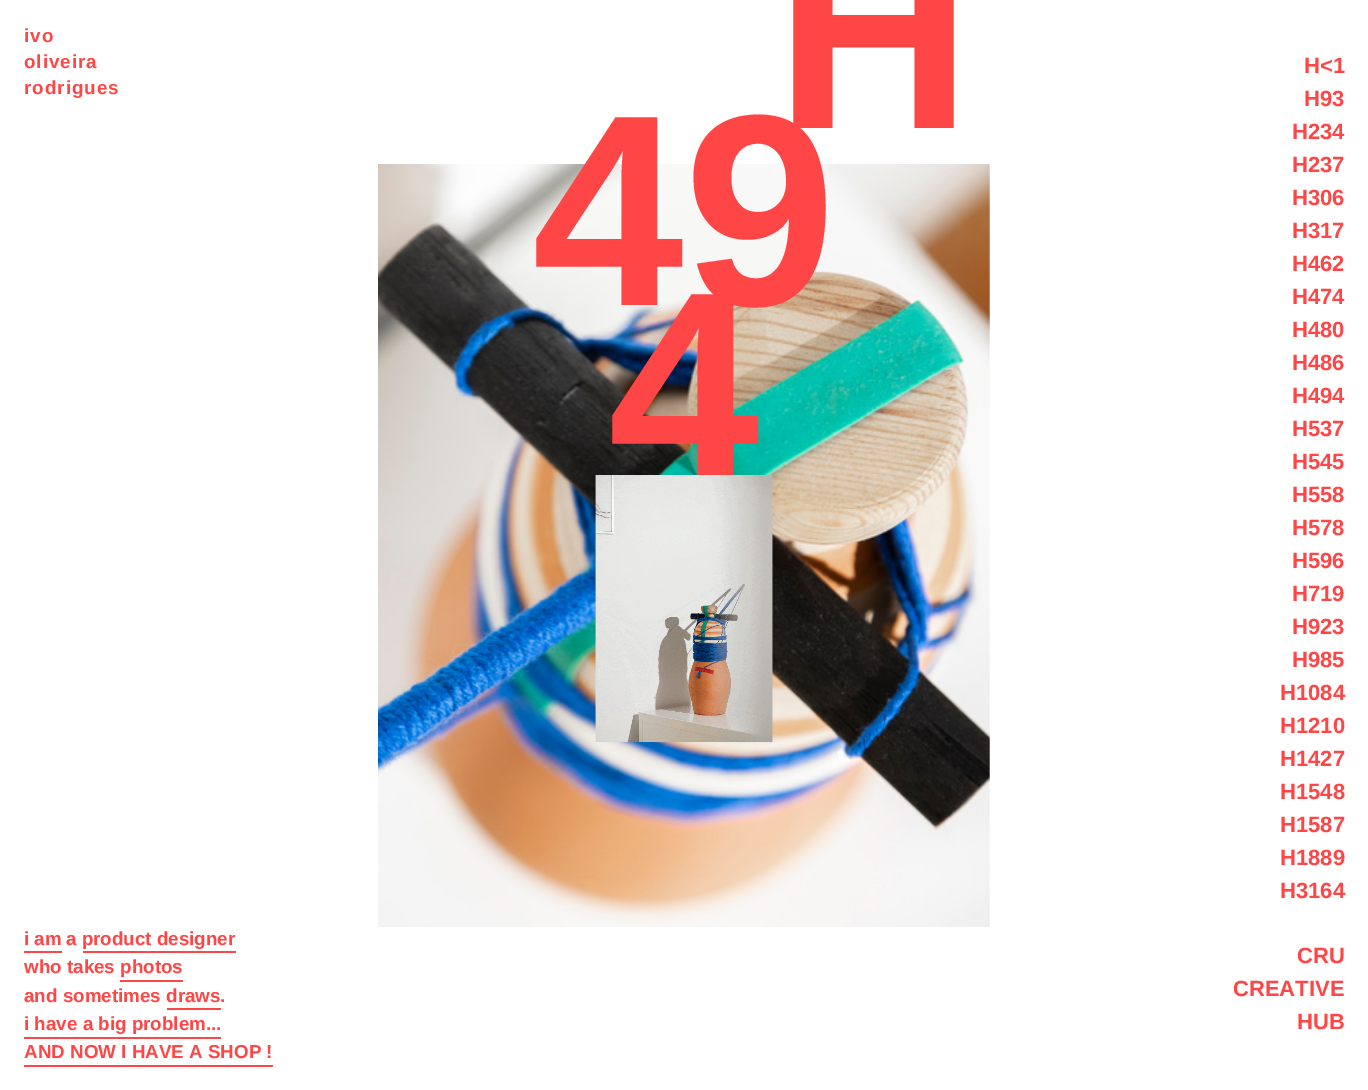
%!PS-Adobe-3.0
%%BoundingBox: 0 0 1368 1090
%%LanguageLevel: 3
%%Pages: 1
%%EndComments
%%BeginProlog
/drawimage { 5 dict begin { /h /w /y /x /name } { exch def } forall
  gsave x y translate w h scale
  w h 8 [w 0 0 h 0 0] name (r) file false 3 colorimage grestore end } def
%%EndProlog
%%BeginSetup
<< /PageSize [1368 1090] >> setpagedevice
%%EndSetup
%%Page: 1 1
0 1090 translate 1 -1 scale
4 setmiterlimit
1 setgray
0 0 1368 1090 rectfill
(images/2.raw) 378 164 612 763 drawimage
1 0.275 0.275 setrgbcolor
24 951 38 2 rectfill
83 951 153 2 rectfill
120 980 63 2 rectfill
167 1008 54 2 rectfill
24 1037 197 2 rectfill
24 1065 249 2 rectfill
/LiberationSans-Bold [273 0 0 -273 0 0] selectfont
775 128 moveto (H) show
532 305 moveto (49) show
608 482 moveto (4) show
(images/1.raw) 595 475 178 268 drawimage
/LiberationSans-Bold [18.8 0 0 -18.8 0 0] selectfont
24 42 moveto 1 0 (ivo) ashow
24 68 moveto 1 0 (oliveira) ashow
24 94 moveto 1 0 (rodrigues) ashow
/LiberationSans-Bold [22 0 0 -22 0 0] selectfont
1304 73 moveto (H<1) show
1304 106 moveto (H93) show
1292 139 moveto (H234) show
1292 172 moveto (H237) show
1292 205 moveto (H306) show
1292 238 moveto (H317) show
1292 271 moveto (H462) show
1292 304 moveto (H474) show
1292 337 moveto (H480) show
1292 370 moveto (H486) show
1292 403 moveto (H494) show
1292 436 moveto (H537) show
1292 469 moveto (H545) show
1292 502 moveto (H558) show
1292 535 moveto (H578) show
1292 568 moveto (H596) show
1292 601 moveto (H719) show
1292 634 moveto (H923) show
1292 667 moveto (H985) show
1280 700 moveto (H1084) show
1280 733 moveto (H1210) show
1280 766 moveto (H1427) show
1280 799 moveto (H1548) show
1280 832 moveto (H1587) show
1280 865 moveto (H1889) show
1280 898 moveto (H3164) show
1297 963 moveto (CRU) show
1233 996 moveto (CREATIVE) show
1297 1029 moveto (HUB) show
/LiberationSans-Bold [18.8 0 0 -18.8 0 0] selectfont
24 945 moveto (i am) show
66 945 moveto (a product designer) show
24 973 moveto (who takes photos) show
24 1002 moveto (and sometimes draws) show
220 1002 moveto (.) show
24 1030 moveto (i have a big problem...) show
24 1058 moveto (AND NOW I HAVE A SHOP !) show
showpage
%%EOF
